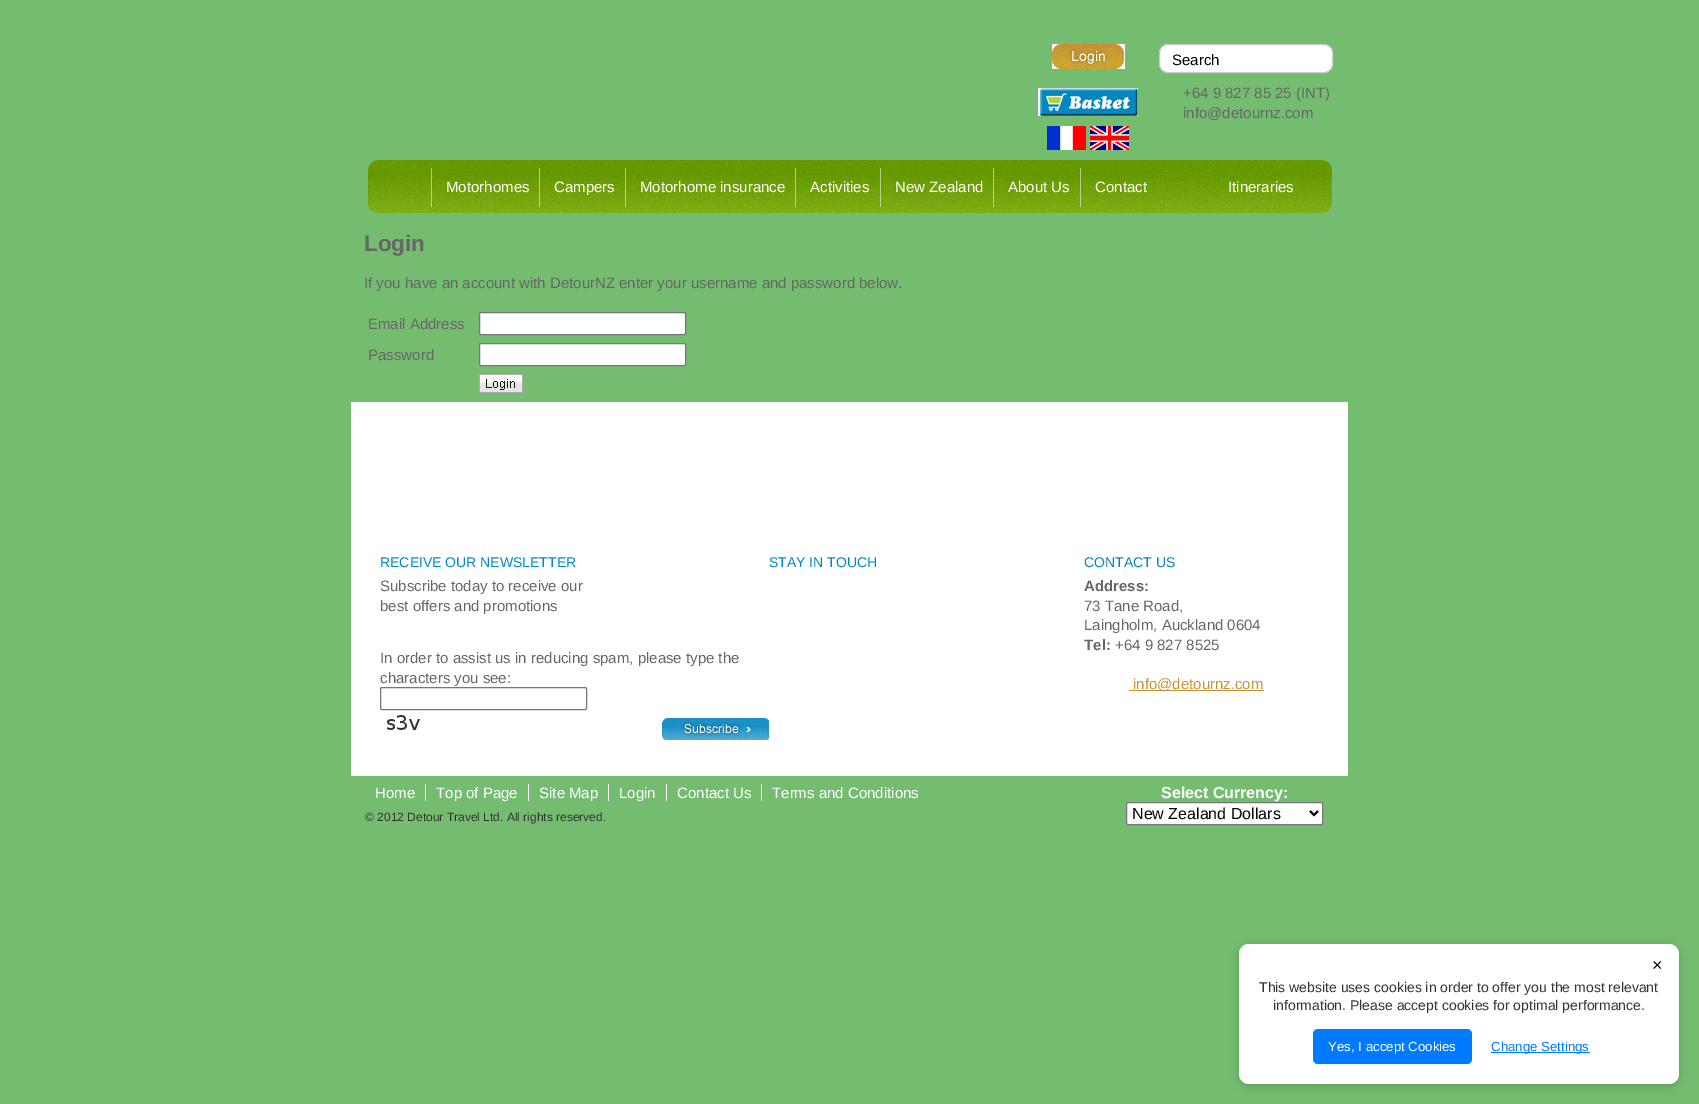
%!PS-Adobe-3.0
%%BoundingBox: 0 0 1699 1104
%%LanguageLevel: 3
%%Pages: 1
%%EndComments
%%BeginProlog
/setalpha { dup .setfillconstantalpha .setstrokeconstantalpha } def
/rrect { 5 dict begin { /r /h /w /y /x } { exch def } forall
  x r add y moveto x w add y 2 copy h add r arct x w add y h add x 1 index r arct
  x y h add x y r arct x y 2 copy exch w add exch r arct closepath end } def
/softshadow { 12 dict begin { /a /b /q /h /w /y /x } { exch def } forall gsave /was 0 def
  9 -2 -9 { dup b mul 4 div /e exch def 1 sub .425 mul 2.718 exch exp 1 add a .99 .min exch div /now exch def
    1 1 now sub 1 was sub div sub setalpha /was now def
    w h .min e 2 mul add 0 gt { x e sub y e sub w e 2 mul add h e 2 mul add
      q e add b .6 mul add w h .min 2 div e add .min 0 .max rrect fill } if } for grestore end } def
/drawimage { 5 dict begin { /h /w /y /x /name } { exch def } forall
  gsave x y translate w h scale
  w h 8 [w 0 0 h 0 0] name (r) file false 3 colorimage grestore end } def
%%EndProlog
%%BeginSetup
<< /PageSize [1699 1104] /PageUsesTransparency true >> setpagedevice
%%EndSetup
%%Page: 1 1
0 .pushpdf14devicefilter
0 1104 translate 1 -1 scale
4 setmiterlimit
0.455 0.741 0.439 setrgbcolor
0 0 1699 1104 rectfill
(images/1.raw) 1052 44 73 25 drawimage
(images/2.raw) 1038 88 100 28 drawimage
(images/3.raw) 1047 126 39 24 drawimage
(images/4.raw) 1090 126 39 24 drawimage
1 setgray
1159.5 44.5 173 28 8.5 rrect gsave fill grestore
0.8 setgray
stroke
(images/5.raw) 368 160 964 53 drawimage
(images/6.raw) 431 160 108 1 drawimage
(images/7.raw) 431 160 108 53 drawimage
(images/8.raw) 539 160 86 1 drawimage
(images/9.raw) 539 160 86 53 drawimage
(images/10.raw) 625 160 170 1 drawimage
(images/11.raw) 625 160 170 53 drawimage
(images/12.raw) 795 160 85 1 drawimage
(images/13.raw) 795 160 85 53 drawimage
(images/14.raw) 880 160 113 1 drawimage
(images/15.raw) 880 160 113 53 drawimage
(images/16.raw) 993 160 87 1 drawimage
(images/17.raw) 993 160 87 53 drawimage
(images/18.raw) 1080 160 76 1 drawimage
(images/19.raw) 1080 160 76 53 drawimage
1 setgray
479.5 312.5 206 22 1.5 rrect gsave fill grestore
0.463 setgray
stroke
1 setgray
479.5 343.5 206 22 1.5 rrect gsave fill grestore
0.463 setgray
stroke
(images/20.raw) 479 374 44 19 drawimage
1 setgray
351 402 997 374 rectfill
0.463 setgray
380.5 687.5 206 22 1.5 rrect stroke
(images/21.raw) 387 715 33 15 drawimage
(images/22.raw) 662 718 107 22 drawimage
0.78 0.58 0.208 setrgbcolor
1129 690 135 1 rectfill
1 setgray
425 784 1 17 rectfill
528 784 1 17 rectfill
608 784 1 17 rectfill
666 784 1 17 rectfill
761 784 1 17 rectfill
1126.5 802.5 196 22 1.5 rrect gsave fill grestore
0.463 setgray
stroke
0 setgray
2 setlinewidth
newpath 1310 811 moveto 1314 815 lineto 1318 811 lineto stroke
1239 946 440 140 10 5 0.2 softshadow
1 setgray
1239 944 440 140 10 rrect fill
0 0.482 1 setrgbcolor
1313 1029 159 35 5 rrect fill
1491 1052 99 1 rectfill
/LiberationSans-Regular [15 0 0 -15 0 0] selectfont
0 setgray
1172 65 moveto (Search) show
0.4 setgray
1183 98 moveto (+64 9 827 85 25 \(INT\)) show
1183 118 moveto (info@detournz.com) show
1 setgray
446 192 moveto (Motorhomes) show
554 192 moveto (Campers) show
640 192 moveto (Motorhome insurance) show
810 192 moveto (Activities) show
895 192 moveto (New Zealand) show
1008 192 moveto (About Us) show
1095 192 moveto (Contact) show
1228 192 moveto (Itineraries) show
/LiberationSans-Bold [22.5 0 0 -22.5 0 0] selectfont
0.4 setgray
364 251 moveto (Login) show
/LiberationSans-Regular [15 0 0 -15 0 0] selectfont
364 288 moveto (If you have an account with DetourNZ enter your username and password below.) show
368 329 moveto (Email Address) show
368 360 moveto (Password) show
/LiberationSans-Regular [14 0 0 -14 0 0] selectfont
0 0.537 0.749 setrgbcolor
380 567 moveto (RECEIVE OUR NEWSLETTER) show
/LiberationSans-Regular [15 0 0 -15 0 0] selectfont
0.4 setgray
380 591 moveto (Subscribe today to receive our) show
380 611 moveto (best offers and promotions) show
380 663 moveto (In order to assist us in reducing spam, please type the) show
380 683 moveto (characters you see:) show
/LiberationSans-Regular [14 0 0 -14 0 0] selectfont
0 0.537 0.749 setrgbcolor
769 567 moveto (STAY IN TOUCH) show
1084 567 moveto (CONTACT US) show
/LiberationSans-Bold [15 0 0 -15 0 0] selectfont
0.4 setgray
1084 591 moveto (Address:) show
/LiberationSans-Regular [15 0 0 -15 0 0] selectfont
1084 611 moveto (73 Tane Road,) show
1084 630 moveto (Laingholm, Auckland 0604) show
/LiberationSans-Bold [15 0 0 -15 0 0] selectfont
1084 650 moveto (Tel:) show
/LiberationSans-Regular [15 0 0 -15 0 0] selectfont
1115 650 moveto (+64 9 827 8525) show
0.78 0.58 0.208 setrgbcolor
1133 689 moveto (info@detournz.com) show
1 setgray
375 798 moveto (Home) show
436 798 moveto (Top of Page) show
539 798 moveto (Site Map) show
619 798 moveto (Login) show
677 798 moveto (Contact Us) show
772 798 moveto (Terms and Conditions) show
/LiberationSans-Regular [12 0 0 -12 0 0] selectfont
0.2 setgray
365 821 moveto (© 2012 Detour Travel Ltd. All rights reserved.) show
/LiberationSans-Bold [16 0 0 -16 0 0] selectfont
1 setgray
1161 798 moveto (Select Currency:) show
/LiberationSans-Regular [16 0 0 -16 0 0] selectfont
0 setgray
1132 819 moveto (New Zealand Dollars) show
/LiberationSans-Regular [18 0 0 -18 0 0] selectfont
1652 971 moveto (×) show
/LiberationSans-Regular [14 0 0 -14 0 0] selectfont
0.2 setgray
1259 992 moveto (This website uses cookies in order to offer you the most relevant) show
1273 1010 moveto (information. Please accept cookies for optimal performance.) show
/LiberationSans-Regular [13.25 0 0 -13.25 0 0] selectfont
1 setgray
1328 1051 moveto (Yes, I accept Cookies) show
0 0.482 1 setrgbcolor
1491 1051 moveto (Change Settings) show
.poppdf14devicefilter showpage
%%EOF
